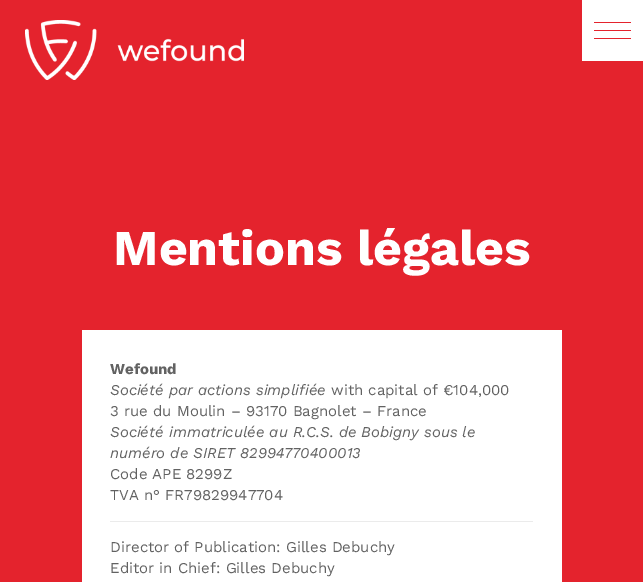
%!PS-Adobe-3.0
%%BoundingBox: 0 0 643 582
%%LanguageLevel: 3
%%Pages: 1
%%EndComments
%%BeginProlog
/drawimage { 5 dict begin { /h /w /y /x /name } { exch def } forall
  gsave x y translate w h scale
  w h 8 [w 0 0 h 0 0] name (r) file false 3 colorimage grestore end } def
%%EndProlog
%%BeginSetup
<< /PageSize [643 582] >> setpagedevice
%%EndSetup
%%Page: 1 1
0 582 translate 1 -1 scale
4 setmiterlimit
0.894 0.137 0.176 setrgbcolor
0 0 643 582 rectfill
1 setgray
582 0 61 61 rectfill
0.894 0.137 0.176 setrgbcolor
594 30 37 1 rectfill
594 22 37 1 rectfill
594 38 37 1 rectfill
(images/1.raw) 25 20 219 60 drawimage
1 setgray
82 330 480 252 rectfill
0.922 setgray
110 521 423 1 rectfill
/WorkSans-Bold [50 0 0 -50 0 0] selectfont
1 setgray
113 265 moveto (Mentions légales) show
/WorkSans-Bold [15 0 0 -15 0 0] selectfont
0.384 setgray
110 374 moveto (Wefound) show
/WorkSans-Italic [15 0 0 -15 0 0] selectfont
110 395 moveto (Société par actions simplifiée) show
/WorkSans-Regular [15 0 0 -15 0 0] selectfont
331 395 moveto (with capital of €104,000) show
110 416 moveto (3 rue du Moulin – 93170 Bagnolet – France) show
/WorkSans-Italic [15 0 0 -15 0 0] selectfont
110 437 moveto (Société immatriculée au R.C.S. de Bobigny sous le) show
110 458 moveto (numéro de SIRET 82994770400013) show
/WorkSans-Regular [15 0 0 -15 0 0] selectfont
110 479 moveto (Code APE 8299Z) show
110 500 moveto (TVA n° FR79829947704) show
110 552 moveto (Director of Publication: Gilles Debuchy) show
110 573 moveto (Editor in Chief: Gilles Debuchy) show
showpage
%%EOF
